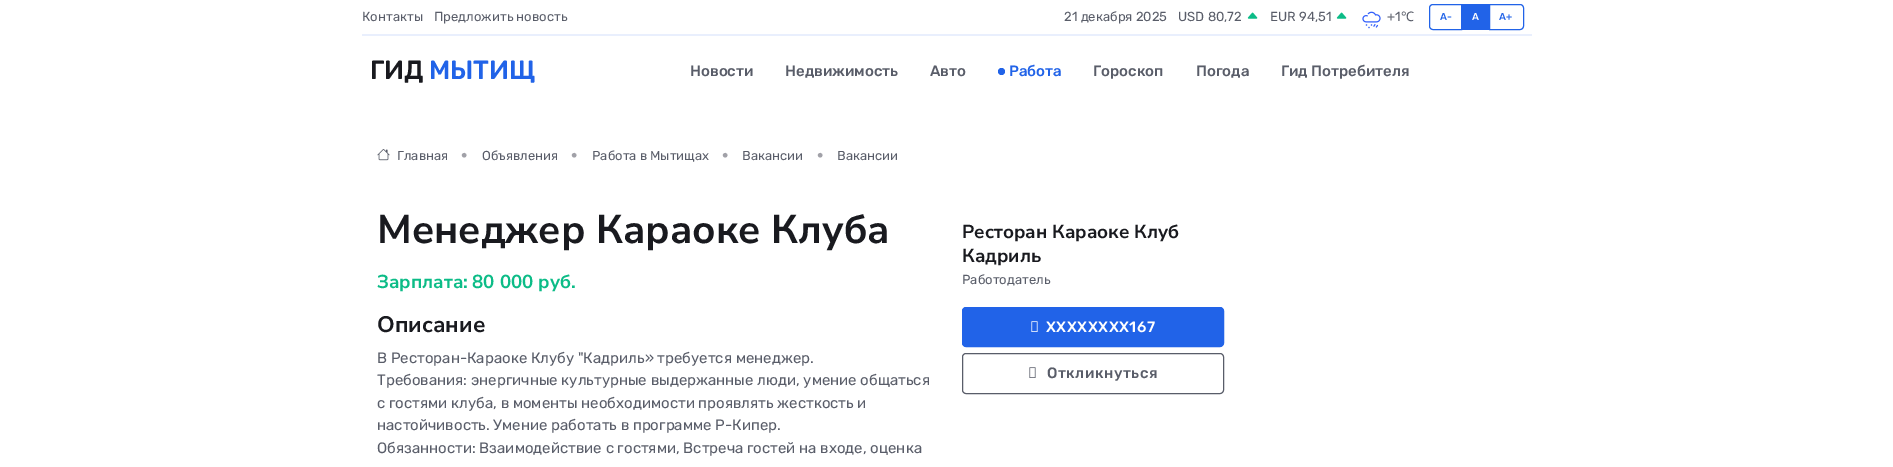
%!PS-Adobe-3.0
%%BoundingBox: 0 0 1893 467
%%LanguageLevel: 3
%%Pages: 1
%%EndComments
%%BeginProlog
/rrect { 5 dict begin { /r /h /w /y /x } { exch def } forall
  x r add y moveto x w add y 2 copy h add r arct x w add y h add x 1 index r arct
  x y h add x y r arct x y 2 copy exch w add exch r arct closepath end } def
/drawimage { 5 dict begin { /h /w /y /x /name } { exch def } forall
  gsave x y translate w h scale
  w h 8 [w 0 0 h 0 0] name (r) file false 3 colorimage grestore end } def
%%EndProlog
%%BeginSetup
<< /PageSize [1893 467] >> setpagedevice
%%EndSetup
%%Page: 1 1
0 467 translate 1 -1 scale
4 setmiterlimit
1 setgray
0 0 1893 467 rectfill
(images/1.raw) 1247 12 11 7 drawimage
(images/1.raw) 1336 12 11 7 drawimage
(images/2.raw) 1362 11 19 18 drawimage
0.129 0.388 0.91 setrgbcolor
newpath 1433 4.5 moveto 1461.5 4.5 lineto 1461.5 29.5 lineto 1433 29.5 lineto 1431 29.5 1429.5 28 1429.5 26 curveto 1429.5 8 lineto 1429.5 6 1431 4.5 1433 4.5 curveto closepath stroke
1462 4 27 26 rectfill
newpath 1489.5 4.5 moveto 1520 4.5 lineto 1522 4.5 1523.5 6 1523.5 8 curveto 1523.5 26 lineto 1523.5 28 1522 29.5 1520 29.5 curveto 1489.5 29.5 lineto closepath stroke
0.914 0.937 0.992 setrgbcolor
362 34 1170 2 rectfill
0.129 0.388 0.91 setrgbcolor
newpath 1001.5 71.5 3.5 0 360 arc closepath fill
(images/3.raw) 377 149 13 12 drawimage
962.5 307.5 261 39 3.5 rrect gsave fill grestore
stroke
(images/4.raw) 1031 321 7 11 drawimage
0.349 0.365 0.412 setrgbcolor
962.5 353.5 261 40 3.5 rrect stroke
(images/5.raw) 1029 367 7 11 drawimage
/Rubik-Regular [13.1 0 0 -13.1 0 0] selectfont
362 21 moveto (Контакты) show
434 21 moveto (Предложить новость) show
1064 21 moveto (21 декабря 2025) show
1178 21 moveto (USD 80,72) show
1270 21 moveto (EUR 94,51) show
1387 21 moveto (+1) show
/NotoSans-Regular [13.1 0 0 -13.1 0 0] selectfont
1401 21 moveto (℃) show
/Rubik-Medium [10 0 0 -10 0 0] selectfont
0.129 0.388 0.91 setrgbcolor
1440 20 moveto 0.5 0 (A-) ashow
1 setgray
1472 20 moveto 0.5 0 (A) ashow
0.129 0.388 0.91 setrgbcolor
1499 20 moveto 0.5 0 (A+) ashow
/Rubik-Medium [26.25 0 0 -26.25 0 0] selectfont
0.098 0.102 0.122 setrgbcolor
370 79 moveto (ГИД) show
0.129 0.388 0.91 setrgbcolor
429 79 moveto (МЫТИЩ) show
/Rubik-Medium [15 0 0 -15 0 0] selectfont
0.349 0.365 0.412 setrgbcolor
690 76 moveto (Новости) show
785 76 moveto (Недвижимость) show
930 76 moveto (Авто) show
0.129 0.388 0.91 setrgbcolor
1009 76 moveto (Работа) show
0.349 0.365 0.412 setrgbcolor
1093 76 moveto (Гороскоп) show
1196 76 moveto (Погода) show
1281 76 moveto (Гид Потребителя) show
/Rubik-Regular [13 0 0 -13 0 0] selectfont
397 160 moveto (Главная) show
/Rubik-Regular [22 0 0 -22 0 0] selectfont
0.631 0.631 0.659 setrgbcolor
460 162 moveto (•) show
/Rubik-Regular [13 0 0 -13 0 0] selectfont
0.349 0.365 0.412 setrgbcolor
482 160 moveto (Объявления) show
/Rubik-Regular [22 0 0 -22 0 0] selectfont
0.631 0.631 0.659 setrgbcolor
570 162 moveto (•) show
/Rubik-Regular [13 0 0 -13 0 0] selectfont
0.349 0.365 0.412 setrgbcolor
592 160 moveto (Работа в Мытищах) show
/Rubik-Regular [22 0 0 -22 0 0] selectfont
0.631 0.631 0.659 setrgbcolor
721 162 moveto (•) show
/Rubik-Regular [13 0 0 -13 0 0] selectfont
0.349 0.365 0.412 setrgbcolor
742 160 moveto (Вакансии) show
/Rubik-Regular [22 0 0 -22 0 0] selectfont
0.631 0.631 0.659 setrgbcolor
816 162 moveto (•) show
/Rubik-Regular [13 0 0 -13 0 0] selectfont
0.349 0.365 0.412 setrgbcolor
837 160 moveto (Вакансии) show
/NunitoSans-Bold [40 0 0 -40 0 0] selectfont
0.098 0.102 0.122 setrgbcolor
377 243 moveto (Менеджер Караоке Клуба) show
/NunitoSans-Bold [18.75 0 0 -18.75 0 0] selectfont
0.047 0.737 0.529 setrgbcolor
377 288 moveto (Зарплата:) show
472 288 moveto (80 000 руб.) show
/NunitoSans-Bold [22.5 0 0 -22.5 0 0] selectfont
0.098 0.102 0.122 setrgbcolor
377 332 moveto (Описание) show
/Rubik-Regular [15 0 0 -15 0 0] selectfont
0.349 0.365 0.412 setrgbcolor
377 363 moveto (В Ресторан-Караоке Клубу "Кадриль» требуется менеджер.) show
377 385 moveto (Требования: энергичные культурные выдержанные люди, умение общаться) show
377 408 moveto (с гостями клуба, в моменты необходимости проявлять жесткость и) show
377 430 moveto (настойчивость. Умение работать в программе Р-Кипер.) show
377 453 moveto (Обязанности: Взаимодействие с гостями, Встреча гостей на входе, оценка) show
/NunitoSans-Bold [18.75 0 0 -18.75 0 0] selectfont
0.098 0.102 0.122 setrgbcolor
962 238 moveto (Ресторан Караоке Клуб) show
962 262 moveto (Кадриль) show
/Rubik-Regular [13.1 0 0 -13.1 0 0] selectfont
0.349 0.365 0.412 setrgbcolor
962 284 moveto (Работодатель) show
/Rubik-Medium [15 0 0 -15 0 0] selectfont
1 setgray
1046 332 moveto 0.5 0 (XXXXXXXX167) ashow
0.349 0.365 0.412 setrgbcolor
1047 378 moveto 0.5 0 (Откликнуться) ashow
showpage
%%EOF
